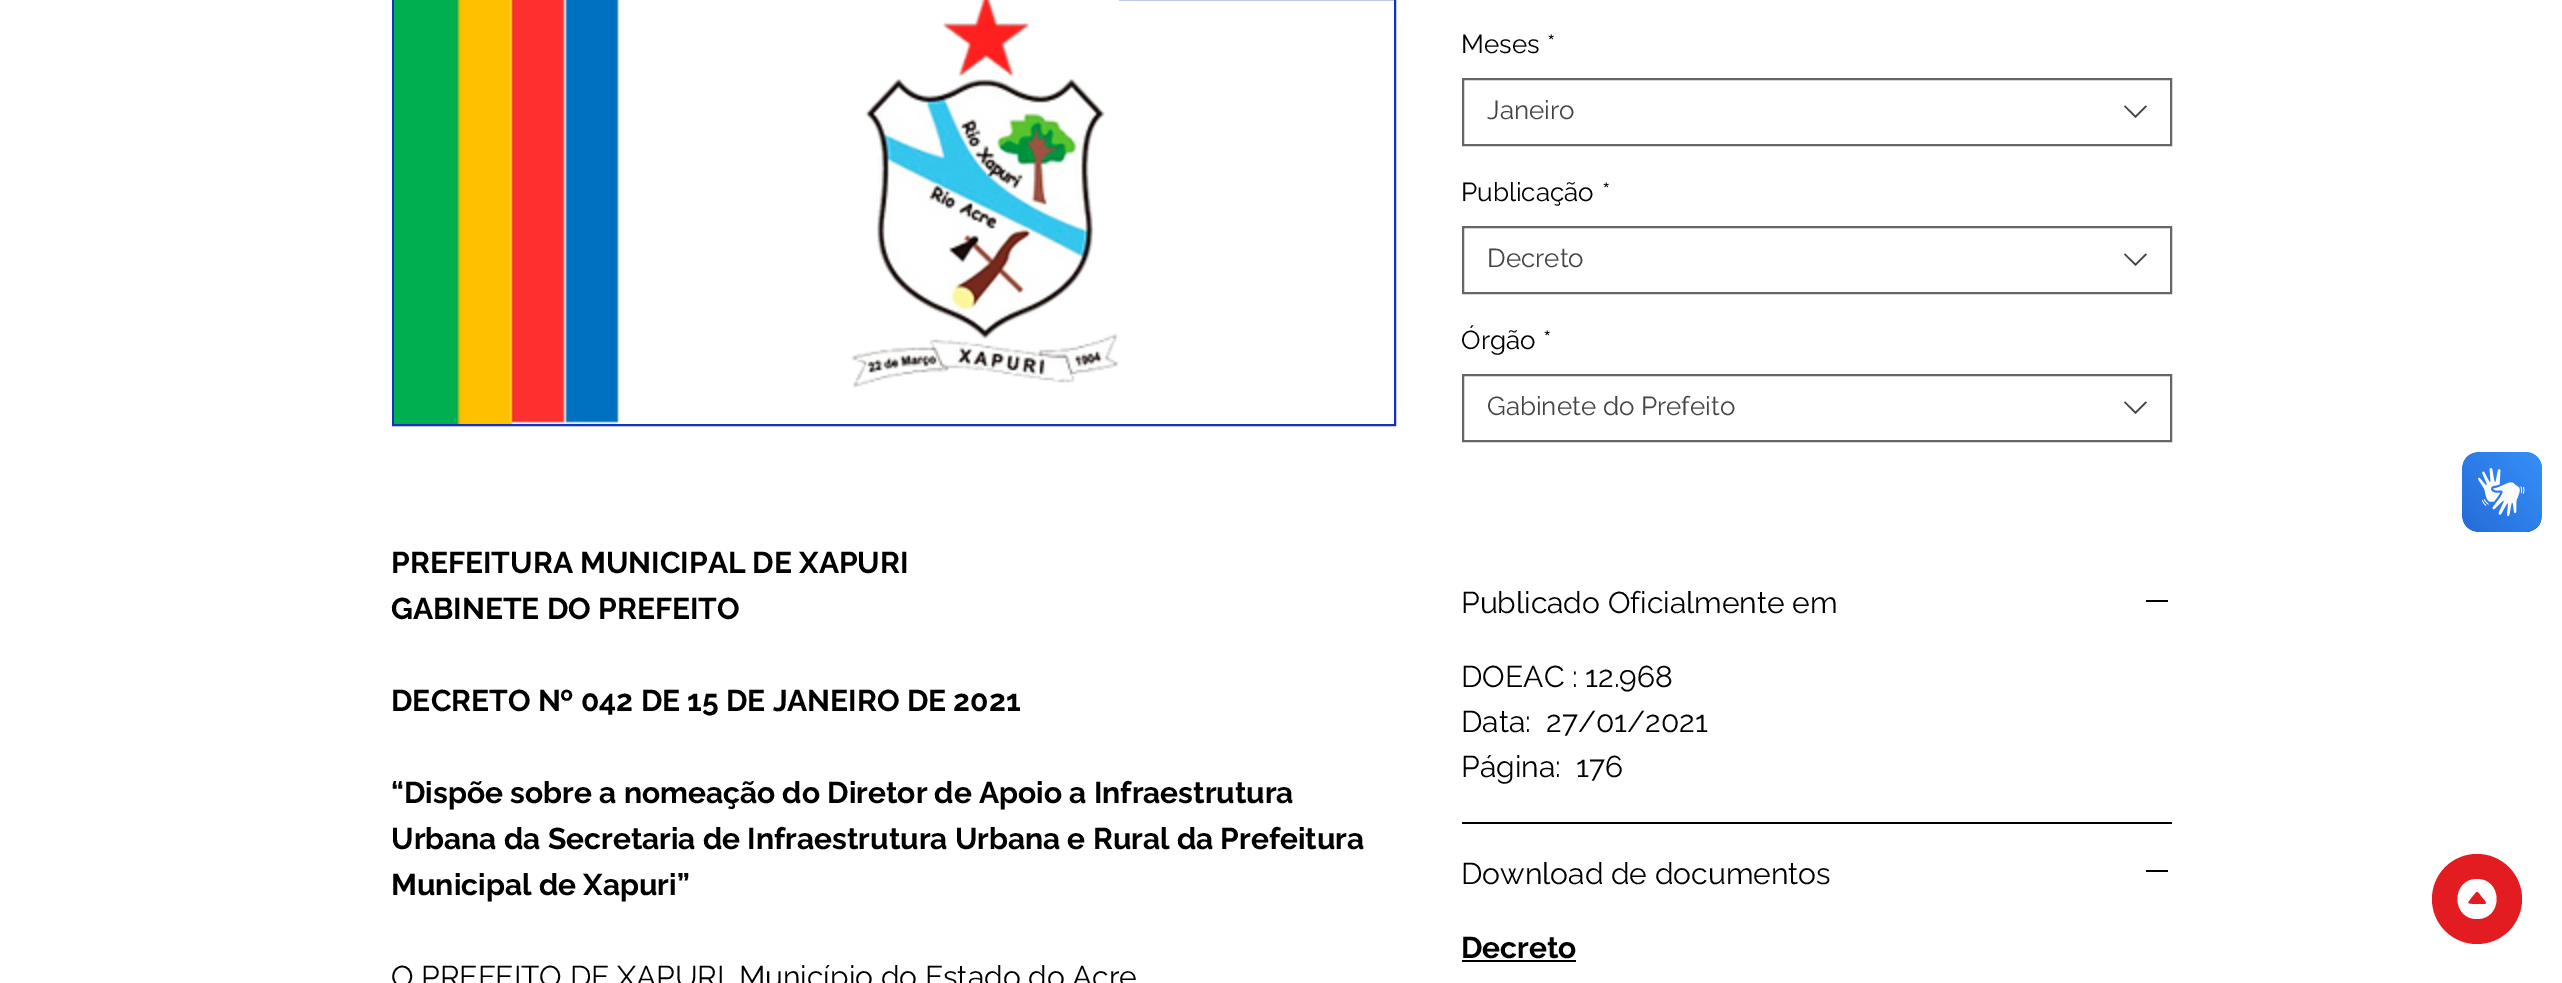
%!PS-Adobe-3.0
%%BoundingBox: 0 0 2562 983
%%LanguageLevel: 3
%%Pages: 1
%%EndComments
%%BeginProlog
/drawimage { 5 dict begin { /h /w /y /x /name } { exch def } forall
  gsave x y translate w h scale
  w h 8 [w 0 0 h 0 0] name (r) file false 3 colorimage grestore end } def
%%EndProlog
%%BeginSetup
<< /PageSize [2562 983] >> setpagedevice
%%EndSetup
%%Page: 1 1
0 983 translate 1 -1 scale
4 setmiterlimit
1 setgray
0 0 2562 983 rectfill
0.071 0.192 0.761 setrgbcolor
2 setlinewidth
393 -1 1002 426 rectstroke
(images/1.raw) 394 0 725 424 drawimage
0.4 setgray
1463 79 708 66 rectstroke
0.267 setgray
newpath 2145.5 105.5 moveto 2147 106.5 lineto 2135.5 118 lineto 2124 106.5 lineto 2125 105.5 lineto 2135.5 115.5 lineto closepath eofill
0.4 setgray
1463 227 708 66 rectstroke
0.267 setgray
newpath 2145.5 253.5 moveto 2147 254.5 lineto 2135.5 266 lineto 2124 254.5 lineto 2125 253.5 lineto 2135.5 263.5 lineto closepath eofill
0.4 setgray
1463 375 708 66 rectstroke
0.267 setgray
newpath 2145.5 401.5 moveto 2147 402.5 lineto 2135.5 414 lineto 2124 402.5 lineto 2125 401.5 lineto 2135.5 411.5 lineto closepath eofill
0 setgray
1462 822 710 2 rectfill
2146 600 22 2 rectfill
2146 870 22 2 rectfill
1462 960 114 2 rectfill
0.886 0.11 0.129 setrgbcolor
newpath 2477 899 45 0 360 arc closepath fill
1 setgray
newpath 2477 879 moveto 2451 879 2451 919 2477 919 curveto 2503 919 2503 879 2477 879 curveto closepath 2485 904 moveto 2472 904 lineto 2466 904 2468 902 2471 898 curveto 2476 892 lineto 2478 890 2481 896 2482 897 curveto 2482 897 2489 904 2485 904 curveto closepath fill
(images/2.raw) 2462 452 80 80 drawimage
(images/3.raw) 2462 452 80 80 drawimage
/Raleway-Bold [30 0 0 -30 0 0] selectfont
0 setgray
391 573 moveto (PREFEITURA MUNICIPAL DE XAPURI) show
391 619 moveto (GABINETE DO PREFEITO) show
391 711 moveto (DECRETO Nº 042 DE 15 DE JANEIRO DE 2021) show
391 803 moveto (“Dispõe sobre a nomeação do Diretor de Apoio a Infraestrutura) show
391 849 moveto (Urbana da Secretaria de Infraestrutura Urbana e Rural da Prefeitura) show
391 895 moveto (Municipal de Xapuri”) show
/Raleway-Regular [30 0 0 -30 0 0] selectfont
391 987 moveto (O PREFEITO DE XAPURI, Município do Estado do Acre) show
/Raleway-Regular [26 0 0 -26 0 0] selectfont
1461 53 moveto (Meses) show
1547 53 moveto (*) show
0.267 setgray
1487 119 moveto (Janeiro) show
0 setgray
1461 201 moveto (Publicação) show
1602 201 moveto (*) show
0.267 setgray
1487 267 moveto (Decreto) show
0 setgray
1461 349 moveto (Órgão) show
1543 349 moveto (*) show
0.267 setgray
1487 415 moveto (Gabinete do Prefeito) show
/Raleway-Regular [30 0 0 -30 0 0] selectfont
0 setgray
1461 613 moveto (Publicado Oficialmente em) show
1461 687 moveto (DOEAC : 12.968) show
1461 732 moveto (Data:  27/01/2021) show
1461 777 moveto (Página:  176) show
1461 884 moveto (Download de documentos) show
/Raleway-Bold [30 0 0 -30 0 0] selectfont
1461 958 moveto (Decreto) show
showpage
%%EOF
